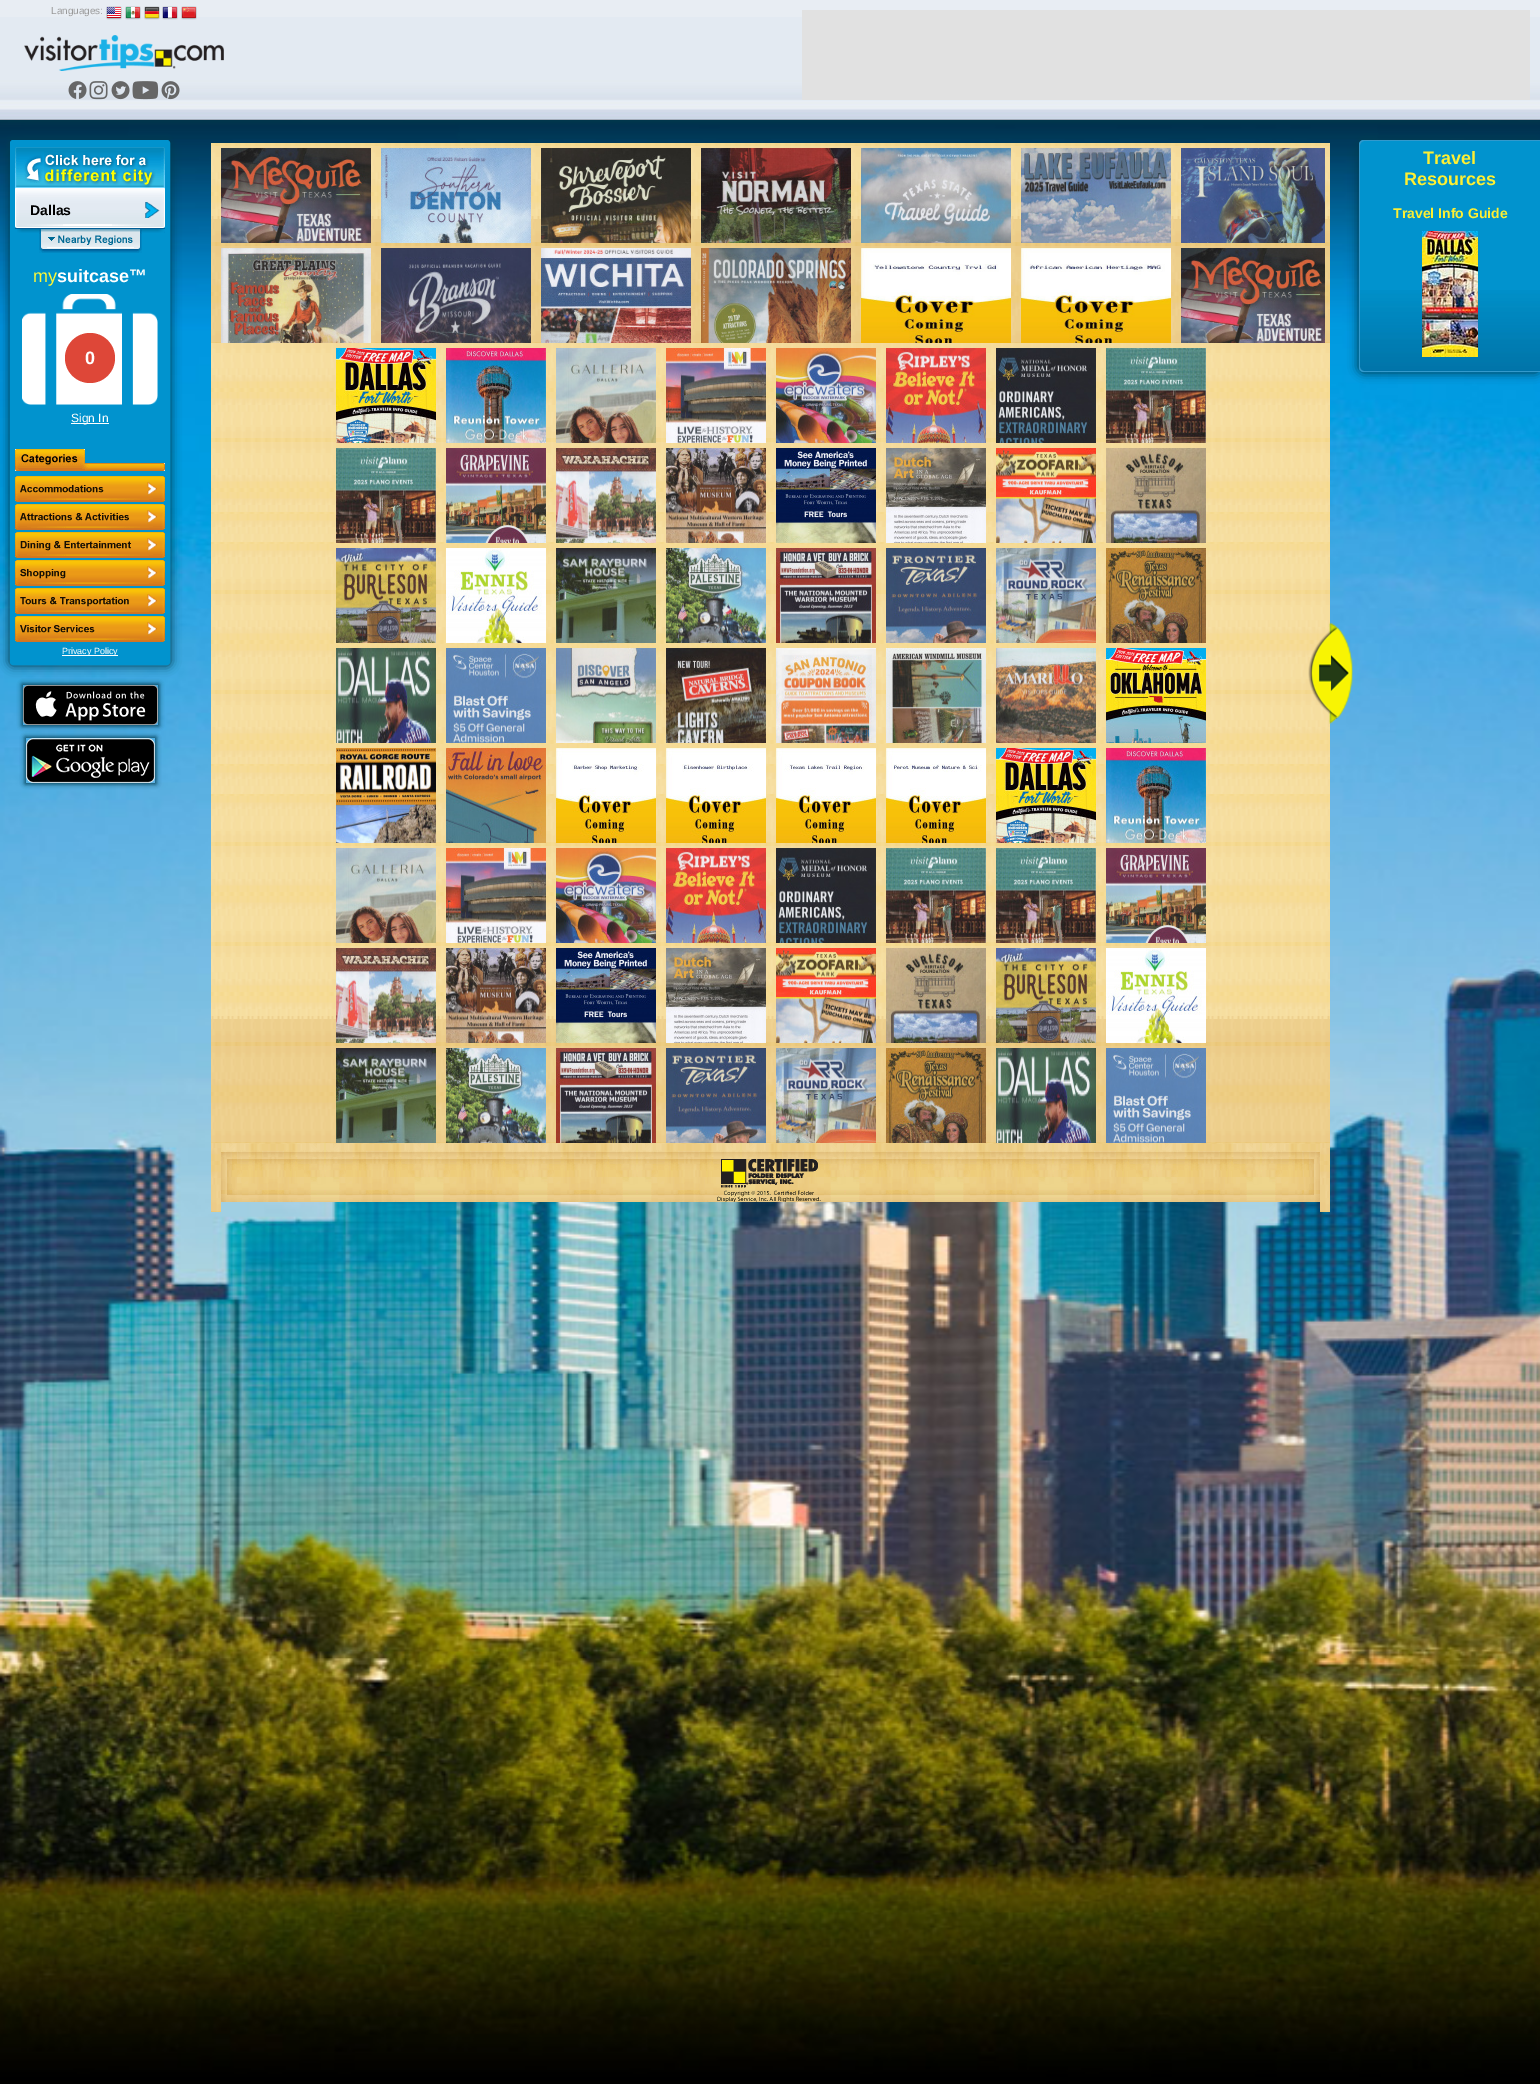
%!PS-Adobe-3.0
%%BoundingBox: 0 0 1540 2084
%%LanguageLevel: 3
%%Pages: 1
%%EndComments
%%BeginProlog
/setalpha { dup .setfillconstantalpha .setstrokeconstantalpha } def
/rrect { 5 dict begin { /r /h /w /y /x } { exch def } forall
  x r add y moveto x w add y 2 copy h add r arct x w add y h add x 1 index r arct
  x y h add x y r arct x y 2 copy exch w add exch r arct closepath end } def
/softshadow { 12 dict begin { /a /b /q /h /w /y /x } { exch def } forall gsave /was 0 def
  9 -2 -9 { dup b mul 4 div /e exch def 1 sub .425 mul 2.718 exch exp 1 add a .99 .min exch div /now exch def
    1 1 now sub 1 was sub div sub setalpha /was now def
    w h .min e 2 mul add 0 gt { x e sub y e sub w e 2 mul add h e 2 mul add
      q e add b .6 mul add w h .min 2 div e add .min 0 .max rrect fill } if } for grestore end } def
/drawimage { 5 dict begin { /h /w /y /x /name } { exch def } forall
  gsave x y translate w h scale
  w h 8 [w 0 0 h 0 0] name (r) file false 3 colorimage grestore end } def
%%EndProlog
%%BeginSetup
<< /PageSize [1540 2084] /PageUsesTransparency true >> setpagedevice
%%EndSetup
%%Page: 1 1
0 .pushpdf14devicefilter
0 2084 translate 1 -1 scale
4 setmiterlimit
1 setgray
0 0 1540 2084 rectfill
(images/13.raw) 0 120 1540 1964 drawimage
0 0.235 0.314 setrgbcolor
-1 -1 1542 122 0 5 1 softshadow
0.91 0.929 0.953 setrgbcolor
0 0 1540 17 rectfill
(images/1.raw) 0 17 1540 103 drawimage
(images/2.raw) 106 6 16 14 drawimage
(images/3.raw) 125 6 16 14 drawimage
(images/4.raw) 144 6 16 14 drawimage
(images/5.raw) 162 6 16 14 drawimage
(images/6.raw) 181 6 16 14 drawimage
0.882 setgray
802 10 728 90 rectfill
(images/7.raw) 24 35 200 36 drawimage
(images/8.raw) 68 81 19 18 drawimage
(images/9.raw) 89 81 19 19 drawimage
(images/10.raw) 111 81 19 19 drawimage
(images/11.raw) 132 81 27 19 drawimage
(images/12.raw) 161 81 19 19 drawimage
(images/14.raw) 211 143 1119 200 drawimage
(images/15.raw) 221 148 150 95 drawimage
(images/16.raw) 381 148 150 95 drawimage
(images/17.raw) 541 148 150 95 drawimage
(images/18.raw) 701 148 150 95 drawimage
(images/19.raw) 861 148 150 95 drawimage
(images/20.raw) 1021 148 150 95 drawimage
(images/21.raw) 1181 148 144 95 drawimage
(images/22.raw) 221 248 150 95 drawimage
(images/23.raw) 381 248 150 95 drawimage
(images/24.raw) 541 248 150 95 drawimage
(images/25.raw) 701 248 150 95 drawimage
(images/26.raw) 861 248 150 95 drawimage
(images/27.raw) 1021 248 150 95 drawimage
(images/28.raw) 1181 248 144 95 drawimage
(images/29.raw) 211 343 1119 800 drawimage
(images/30.raw) 336 348 100 95 drawimage
(images/31.raw) 446 348 100 95 drawimage
(images/32.raw) 556 348 100 95 drawimage
(images/33.raw) 666 348 100 95 drawimage
(images/34.raw) 776 348 100 95 drawimage
(images/35.raw) 886 348 100 95 drawimage
(images/36.raw) 996 348 100 95 drawimage
(images/37.raw) 1106 348 100 95 drawimage
(images/37.raw) 336 448 100 95 drawimage
(images/38.raw) 446 448 100 95 drawimage
(images/39.raw) 556 448 100 95 drawimage
(images/40.raw) 666 448 100 95 drawimage
(images/41.raw) 776 448 100 95 drawimage
(images/42.raw) 886 448 100 95 drawimage
(images/43.raw) 996 448 100 95 drawimage
(images/44.raw) 1106 448 100 95 drawimage
(images/45.raw) 336 548 100 95 drawimage
(images/46.raw) 446 548 100 95 drawimage
(images/47.raw) 556 548 100 95 drawimage
(images/48.raw) 666 548 100 95 drawimage
(images/49.raw) 776 548 100 95 drawimage
(images/50.raw) 886 548 100 95 drawimage
(images/51.raw) 996 548 100 95 drawimage
(images/52.raw) 1106 548 100 95 drawimage
(images/53.raw) 336 648 100 95 drawimage
(images/54.raw) 446 648 100 95 drawimage
(images/55.raw) 556 648 100 95 drawimage
(images/56.raw) 666 648 100 95 drawimage
(images/57.raw) 776 648 100 95 drawimage
(images/58.raw) 886 648 100 95 drawimage
(images/59.raw) 996 648 100 95 drawimage
(images/60.raw) 1106 648 100 95 drawimage
(images/61.raw) 336 748 100 95 drawimage
(images/62.raw) 446 748 100 95 drawimage
(images/63.raw) 556 748 100 95 drawimage
(images/64.raw) 666 748 100 95 drawimage
(images/65.raw) 776 748 100 95 drawimage
(images/66.raw) 886 748 100 95 drawimage
(images/30.raw) 996 748 100 95 drawimage
(images/31.raw) 1106 748 100 95 drawimage
(images/67.raw) 336 848 100 95 drawimage
(images/33.raw) 446 848 100 95 drawimage
(images/34.raw) 556 848 100 95 drawimage
(images/35.raw) 666 848 100 95 drawimage
(images/36.raw) 776 848 100 95 drawimage
(images/37.raw) 886 848 100 95 drawimage
(images/37.raw) 996 848 100 95 drawimage
(images/38.raw) 1106 848 100 95 drawimage
(images/39.raw) 336 948 100 95 drawimage
(images/40.raw) 446 948 100 95 drawimage
(images/41.raw) 556 948 100 95 drawimage
(images/42.raw) 666 948 100 95 drawimage
(images/68.raw) 776 948 100 95 drawimage
(images/44.raw) 886 948 100 95 drawimage
(images/45.raw) 996 948 100 95 drawimage
(images/46.raw) 1106 948 100 95 drawimage
(images/47.raw) 336 1048 100 95 drawimage
(images/48.raw) 446 1048 100 95 drawimage
(images/49.raw) 556 1048 100 95 drawimage
(images/50.raw) 666 1048 100 95 drawimage
(images/51.raw) 776 1048 100 95 drawimage
(images/52.raw) 886 1048 100 95 drawimage
(images/53.raw) 996 1048 100 95 drawimage
(images/54.raw) 1106 1048 100 95 drawimage
(images/69.raw) 211 1143 10 69 drawimage
(images/69.raw) 1320 1143 10 69 drawimage
(images/70.raw) 221 1143 1099 59 drawimage
(images/71.raw) 221 1152 16 50 drawimage
(images/72.raw) 1304 1152 16 50 drawimage
(images/73.raw) 717 1159 104 43 drawimage
(images/74.raw) 1308 622 45 102 drawimage
0 0.235 0.314 setrgbcolor
1358 139 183 234 6 5 1 softshadow
0.004 0.576 0.808 setrgbcolor
newpath 1364 140 moveto 1540 140 lineto 1540 372 lineto 1364 372 lineto 1361 372 1359 370 1359 367 curveto 1359 145 lineto 1359 142 1361 140 1364 140 curveto closepath fill
(images/75.raw) 1359 290 181 81 drawimage
0.2 0.6 0.8 setrgbcolor
newpath 1364 140 moveto 1540 140 lineto 1540 372 lineto 1364 372 lineto 1361 372 1359 370 1359 367 curveto 1359 145 lineto 1359 142 1361 140 1364 140 curveto closepath 1364 141 moveto 1540 141 lineto 1540 371 lineto 1364 371 lineto 1362 371 1360 369 1360 367 curveto 1360 145 lineto 1360 143 1362 141 1364 141 curveto closepath eofill
(images/76.raw) 1422 231 56 126 drawimage
0 0.235 0.314 setrgbcolor
9 139 162 527 4 5 1 softshadow
0.004 0.576 0.808 setrgbcolor
11 141 158 523 2 rrect gsave fill grestore
2 setlinewidth
stroke
(images/77.raw) 15 223 150 5 drawimage
(images/78.raw) 15 147 150 76 drawimage
(images/79.raw) 145 202 15 16 drawimage
(images/80.raw) 17 229 148 4 drawimage
0 0.369 0.592 setrgbcolor
15 228 150 1 rectfill
(images/81.raw) 39 229 103 24 drawimage
(images/82.raw) 22 294 136 111 drawimage
0.871 0.278 0.22 setrgbcolor
newpath 90 358 25 0 360 arc closepath fill
1 setgray
71 423 38 1 rectfill
(images/83.raw) 15 449 150 22 drawimage
(images/84.raw) 15 476 150 26 drawimage
(images/85.raw) 20 485 84 8 drawimage
(images/84.raw) 15 504 150 26 drawimage
(images/86.raw) 20 513 109 8 drawimage
(images/84.raw) 15 532 150 26 drawimage
(images/87.raw) 20 541 111 10 drawimage
(images/84.raw) 15 560 150 26 drawimage
(images/88.raw) 20 569 46 10 drawimage
(images/84.raw) 15 588 150 26 drawimage
(images/89.raw) 20 597 109 10 drawimage
(images/84.raw) 15 616 150 26 drawimage
(images/90.raw) 20 625 75 8 drawimage
62 655 56 1 rectfill
0 0.235 0.314 setrgbcolor
22 684 137 42 0 2.5 1 softshadow
(images/91.raw) 23 685 135 40 drawimage
gsave
newpath 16 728 moveto 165 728 lineto 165 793 lineto 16 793 lineto closepath 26 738 moveto 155 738 lineto 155 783 lineto 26 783 lineto closepath eoclip newpath
25 737 131 47 0 2.5 1 softshadow
grestore
(images/92.raw) 26 738 129 45 drawimage
/LiberationSans-Regular [10 0 0 -10 0 0] selectfont
0.6 setgray
51 14 moveto (Languages:) show
/LiberationSans-Bold [18 0 0 -18 0 0] selectfont
0.996 0.937 0.196 setrgbcolor
1423 164 moveto (Travel) show
1404 185 moveto (Resources) show
/LiberationSans-Bold [14 0 0 -14 0 0] selectfont
1393 218 moveto (Travel Info Guide) show
0 setgray
30 215 moveto (Dallas) show
/LiberationSans-Regular [18 0 0 -18 0 0] selectfont
1 0.973 0.208 setrgbcolor
33 282 moveto (my) show
/LiberationSans-Bold [18 0 0 -18 0 0] selectfont
1 setgray
57 282 moveto (suitcase™) show
85 364 moveto (0) show
/LiberationSans-Regular [12 0 0 -12 0 0] selectfont
71 422 moveto (Sign In) show
/LiberationSans-Regular [9 0 0 -9 0 0] selectfont
62 654 moveto (Privacy Policy) show
.poppdf14devicefilter showpage
%%EOF
